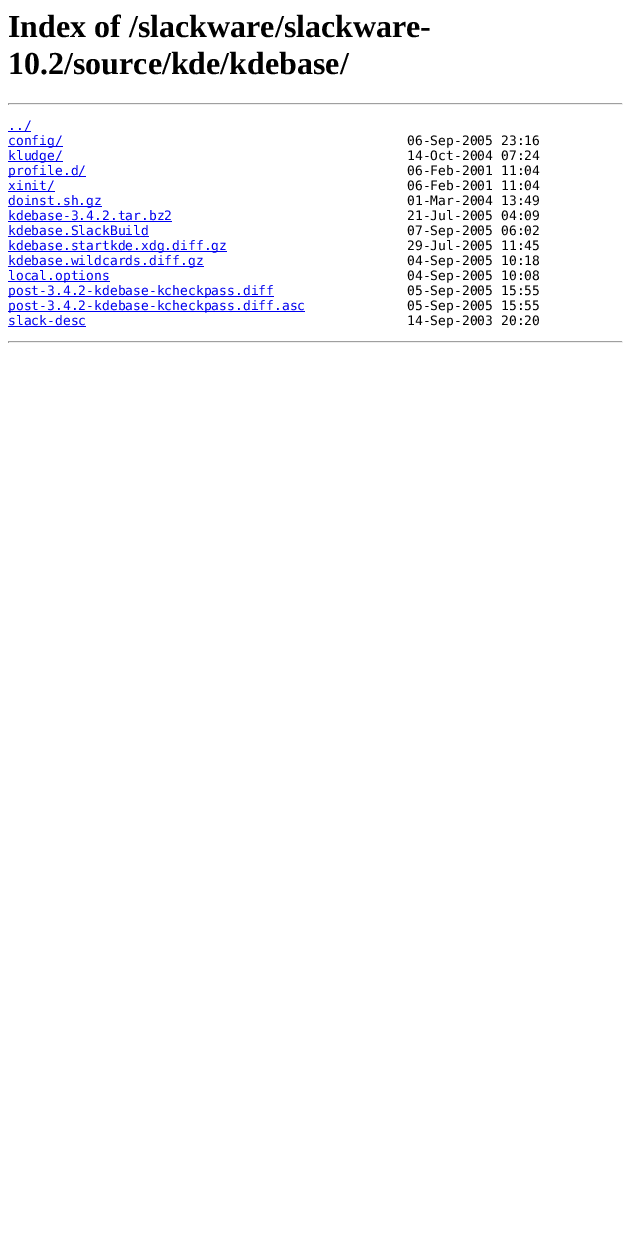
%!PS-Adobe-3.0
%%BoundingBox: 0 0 631 1235
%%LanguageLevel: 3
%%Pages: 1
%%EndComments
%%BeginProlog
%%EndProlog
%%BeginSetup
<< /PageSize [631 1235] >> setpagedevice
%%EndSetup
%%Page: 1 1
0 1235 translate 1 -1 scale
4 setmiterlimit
1 setgray
0 0 631 1235 rectfill
0.624 setgray
8 103 615 1 rectfill
0.933 setgray
622 103 1 2 rectfill
8 104 615 1 rectfill
0.624 setgray
8 103 1 2 rectfill
0 0 0.933 setrgbcolor
8 131 23 1 rectfill
8 146 55 1 rectfill
8 161 55 1 rectfill
8 176 78 1 rectfill
8 191 47 1 rectfill
8 206 94 1 rectfill
8 221 164 1 rectfill
8 236 141 1 rectfill
8 251 219 1 rectfill
8 266 196 1 rectfill
8 281 102 1 rectfill
8 296 266 1 rectfill
8 311 297 1 rectfill
8 326 78 1 rectfill
0.624 setgray
8 341 615 1 rectfill
0.933 setgray
622 341 1 2 rectfill
8 342 615 1 rectfill
0.624 setgray
8 341 1 2 rectfill
/LiberationSerif-Bold [32 0 0 -32 0 0] selectfont
0 setgray
8 37 moveto (Index of /slackware/slackware-) show
8 74 moveto (10.2/source/kde/kdebase/) show
/DejaVuSansMono-Regular [13 0 0 -13 0 0] selectfont
0 0 0.933 setrgbcolor
8 130 moveto (../) show
8 145 moveto (config/) show
0 setgray
407 145 moveto (06-Sep-2005 23:16) show
0 0 0.933 setrgbcolor
8 160 moveto (kludge/) show
0 setgray
407 160 moveto (14-Oct-2004 07:24) show
0 0 0.933 setrgbcolor
8 175 moveto (profile.d/) show
0 setgray
407 175 moveto (06-Feb-2001 11:04) show
0 0 0.933 setrgbcolor
8 190 moveto (xinit/) show
0 setgray
407 190 moveto (06-Feb-2001 11:04) show
0 0 0.933 setrgbcolor
8 205 moveto (doinst.sh.gz) show
0 setgray
407 205 moveto (01-Mar-2004 13:49) show
0 0 0.933 setrgbcolor
8 220 moveto (kdebase-3.4.2.tar.bz2) show
0 setgray
407 220 moveto (21-Jul-2005 04:09) show
0 0 0.933 setrgbcolor
8 235 moveto (kdebase.SlackBuild) show
0 setgray
407 235 moveto (07-Sep-2005 06:02) show
0 0 0.933 setrgbcolor
8 250 moveto (kdebase.startkde.xdg.diff.gz) show
0 setgray
407 250 moveto (29-Jul-2005 11:45) show
0 0 0.933 setrgbcolor
8 265 moveto (kdebase.wildcards.diff.gz) show
0 setgray
407 265 moveto (04-Sep-2005 10:18) show
0 0 0.933 setrgbcolor
8 280 moveto (local.options) show
0 setgray
407 280 moveto (04-Sep-2005 10:08) show
0 0 0.933 setrgbcolor
8 295 moveto (post-3.4.2-kdebase-kcheckpass.diff) show
0 setgray
407 295 moveto (05-Sep-2005 15:55) show
0 0 0.933 setrgbcolor
8 310 moveto (post-3.4.2-kdebase-kcheckpass.diff.asc) show
0 setgray
407 310 moveto (05-Sep-2005 15:55) show
0 0 0.933 setrgbcolor
8 325 moveto (slack-desc) show
0 setgray
407 325 moveto (14-Sep-2003 20:20) show
showpage
%%EOF
